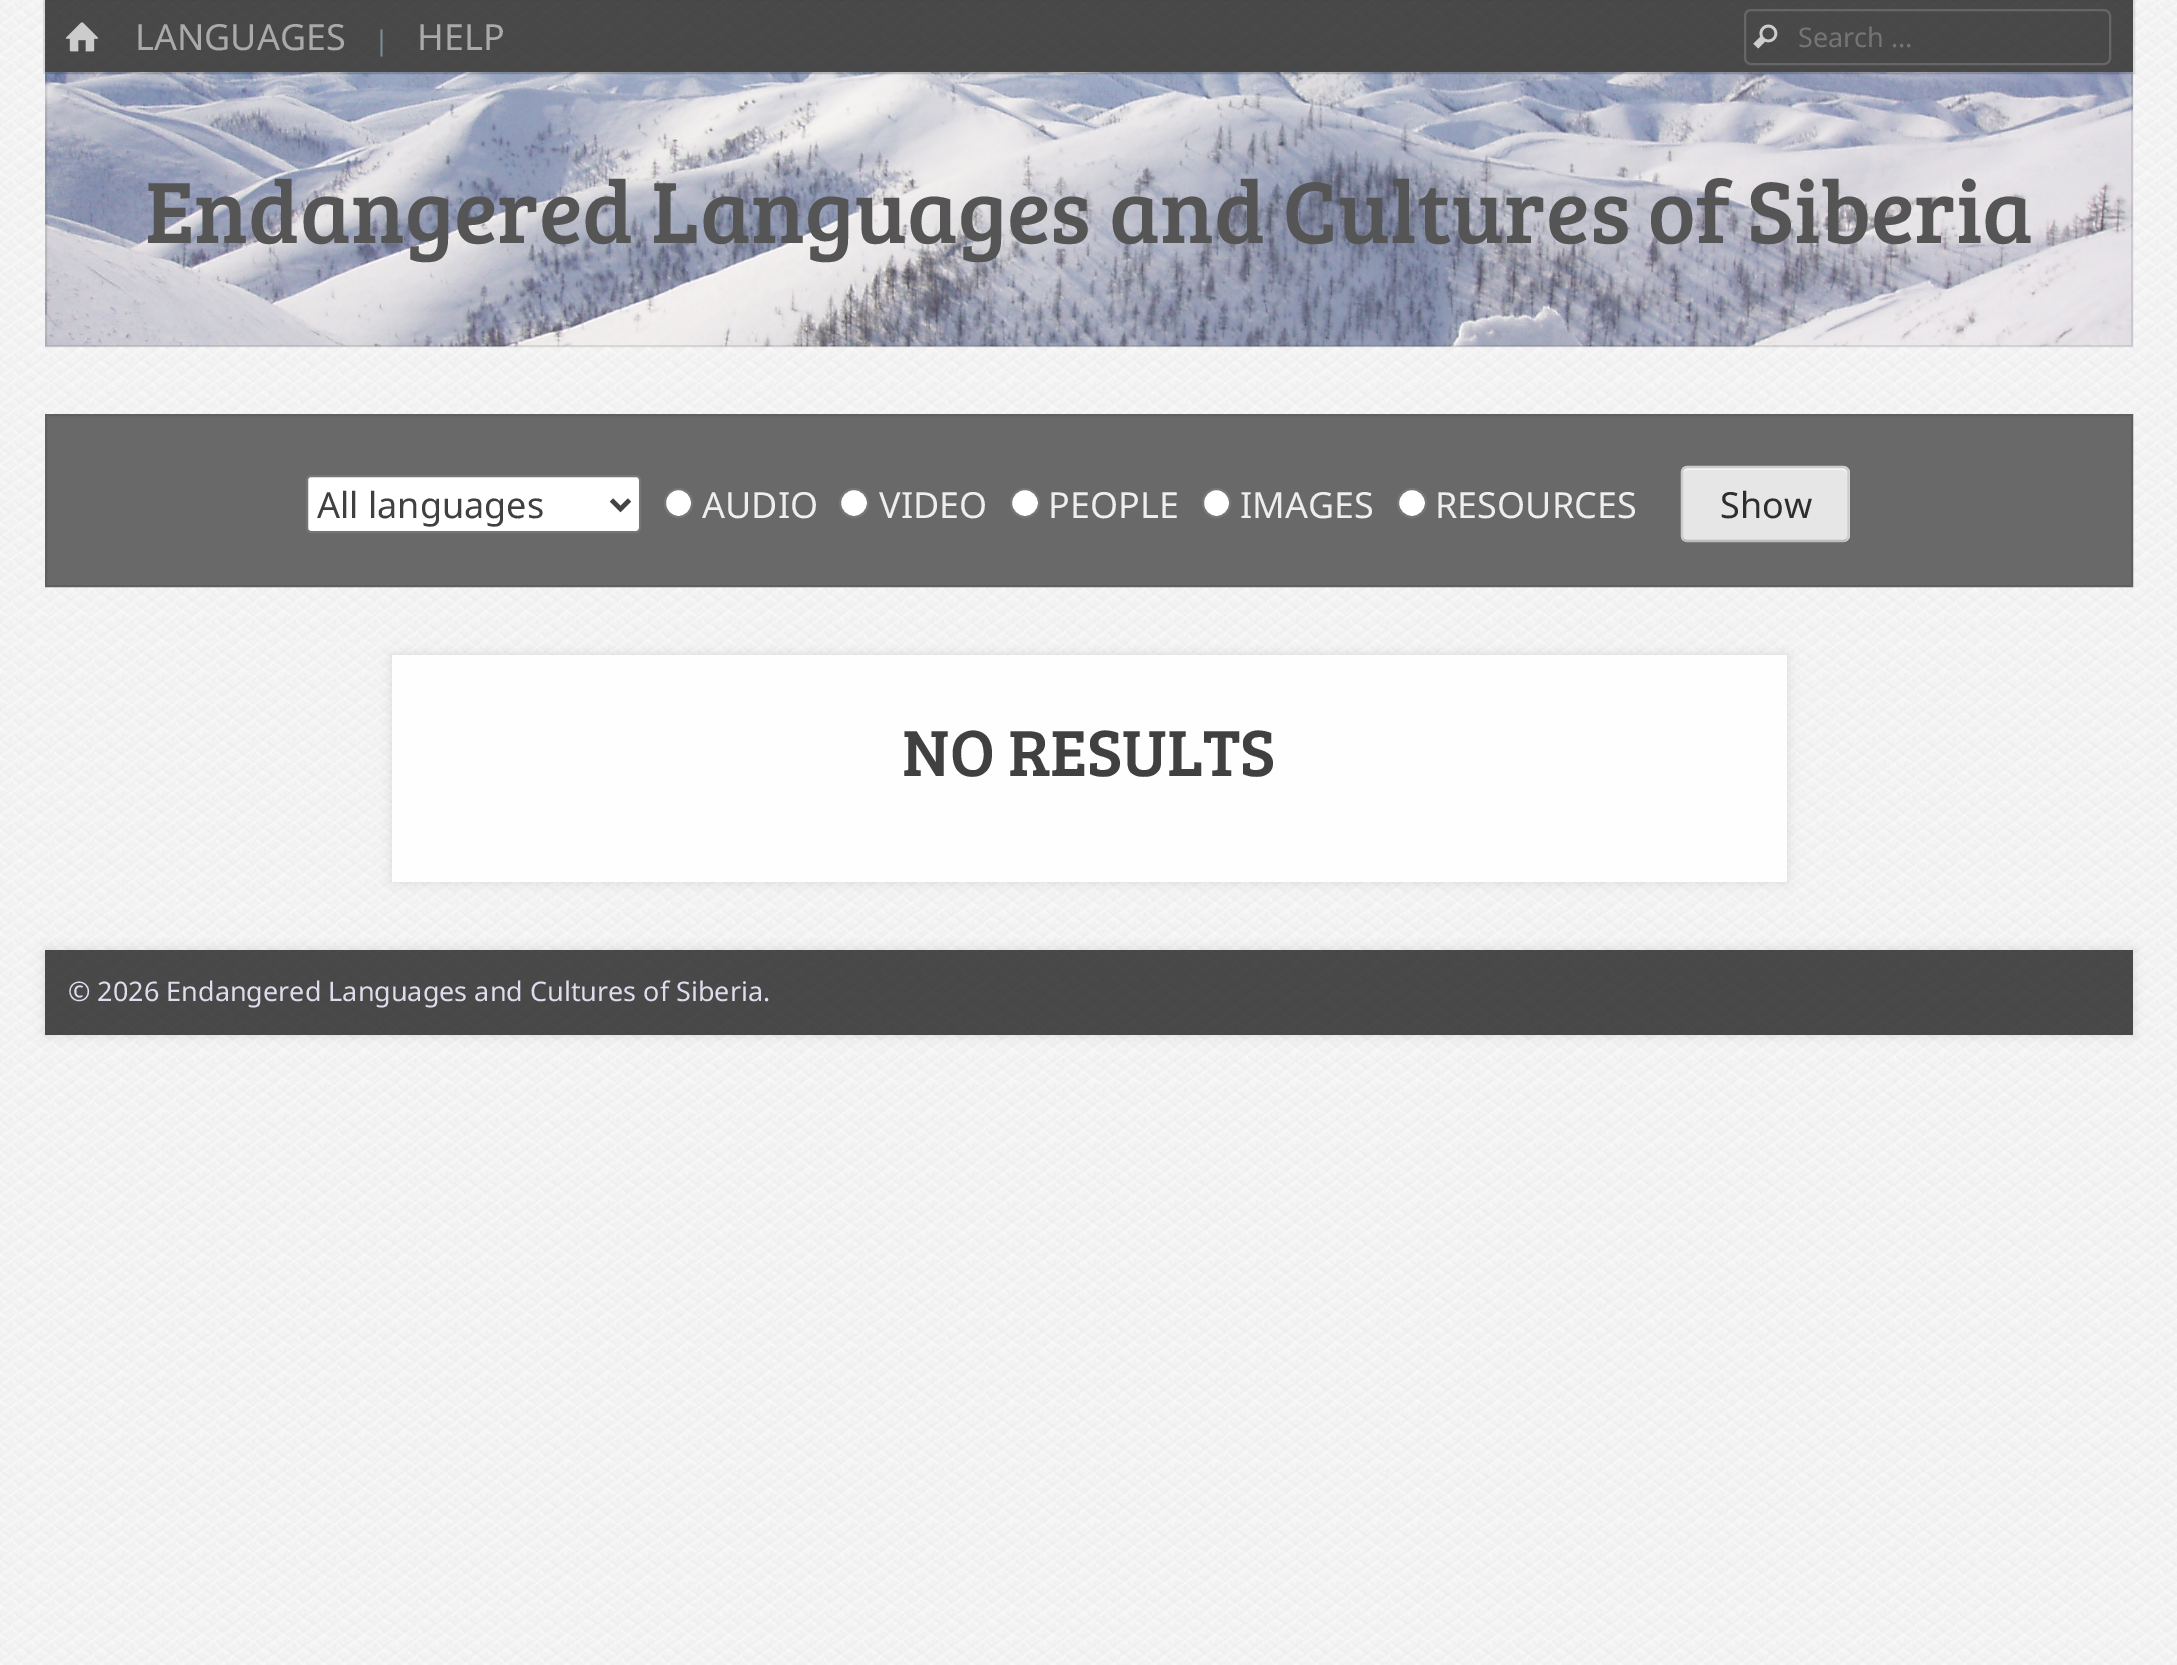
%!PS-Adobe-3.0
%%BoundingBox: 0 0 2177 1665
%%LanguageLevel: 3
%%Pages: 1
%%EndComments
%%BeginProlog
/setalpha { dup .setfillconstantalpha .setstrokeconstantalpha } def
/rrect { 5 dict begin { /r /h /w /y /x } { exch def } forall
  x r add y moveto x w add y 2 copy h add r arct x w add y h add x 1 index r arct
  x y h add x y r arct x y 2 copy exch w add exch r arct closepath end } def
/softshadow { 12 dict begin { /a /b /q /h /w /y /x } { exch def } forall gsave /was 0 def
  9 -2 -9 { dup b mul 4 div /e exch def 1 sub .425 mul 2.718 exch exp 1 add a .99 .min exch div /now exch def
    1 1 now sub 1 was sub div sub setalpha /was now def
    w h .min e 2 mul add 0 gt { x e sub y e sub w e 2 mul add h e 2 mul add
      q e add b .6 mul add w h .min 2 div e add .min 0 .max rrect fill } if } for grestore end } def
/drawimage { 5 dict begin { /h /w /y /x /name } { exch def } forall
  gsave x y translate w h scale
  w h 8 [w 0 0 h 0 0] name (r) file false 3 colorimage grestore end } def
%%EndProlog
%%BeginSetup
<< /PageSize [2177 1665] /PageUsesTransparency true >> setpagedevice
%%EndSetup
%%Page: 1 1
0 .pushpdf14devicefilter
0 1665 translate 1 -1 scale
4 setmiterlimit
1 setgray
0 0 2177 1665 rectfill
(images/1.raw) 0 0 2177 1665 drawimage
(images/4.raw) 45 72 2088 275 drawimage
0.1 setalpha
0 setgray
2 setlinewidth
46 73 2086 273 rectstroke
44 -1 2090 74 rectstroke
0.7 setalpha
45 0 2088 72 rectfill
1 setalpha
(images/2.raw) 65 22 34 30 drawimage
0.4 setgray
1745 10 365 54 6 rrect stroke
(images/3.raw) 1753 24 25 25 drawimage
0.412 setgray
newpath 46 415 moveto 2132 415 lineto 2132 586 lineto 46 586 lineto closepath gsave fill grestore
0.373 setgray
stroke
1 setgray
307 476 333 56 4 rrect gsave fill grestore
0.463 setgray
stroke
0.267 setgray
4.5 setlinewidth
newpath 611.5 500 moveto 620.5 509 lineto 629.5 500 lineto stroke
1 setgray
665 489 27 28 13.5 rrect gsave fill grestore
0.463 setgray
2 setlinewidth
stroke
1 setgray
newpath 854 503 14 0 360 arc closepath gsave fill grestore
0.463 setgray
stroke
1 setgray
newpath 1025 503 14 0 360 arc closepath gsave fill grestore
0.463 setgray
stroke
1 setgray
1203 489 27 28 13.5 rrect gsave fill grestore
0.463 setgray
stroke
1 setgray
newpath 1412 503 14 0 360 arc closepath gsave fill grestore
0.463 setgray
stroke
0.902 setgray
1681 466 169 76 7 rrect fill
0.953 setgray
newpath 1688 470 moveto 1843 470 lineto 1845 470 1847 472 1847 475 curveto 1847 473 lineto 1847 470 1845 468 1842 468 curveto 1688 468 lineto 1685 468 1683 470 1683 473 curveto 1683 475 lineto 1683 472 1685 470 1688 470 curveto closepath fill
0.733 setgray
2.2 setlinewidth
newpath 1846.5 539.5 moveto 1845.5 540.5 1844 541 1843 541 curveto 1687.5 541 lineto 1686 541 1684.5 540.5 1683.5 539.5 curveto stroke
0.8 setgray
newpath 1683.5 539.5 moveto 1682.5 538.5 1682 537 1682 535.5 curveto 1682 472.5 lineto 1682 471 1682.5 469.5 1683.5 468.5 curveto 1684.5 467.5 1686 467 1687.5 467 curveto 1843 467 lineto 1844 467 1845.5 467.5 1846.5 468.5 curveto 1848 469.5 1848.5 471 1848.5 472.5 curveto 1848.5 535.5 lineto 1848.5 537 1848 538.5 1846.5 539.5 curveto stroke
gsave
newpath 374 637 moveto 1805 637 lineto 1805 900 lineto 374 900 lineto closepath 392 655 moveto 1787 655 lineto 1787 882 lineto 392 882 lineto closepath eoclip newpath
0 setgray
392 655 1395 227 0 5.5 0.1 softshadow
grestore
0.9 setalpha
1 setgray
392 655 1395 227 rectfill
gsave
newpath 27 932 moveto 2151 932 lineto 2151 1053 lineto 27 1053 lineto closepath 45 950 moveto 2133 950 lineto 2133 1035 lineto 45 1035 lineto closepath eoclip newpath
1 setalpha
0 setgray
45 950 2088 85 0 5.5 0.1 softshadow
grestore
0.7 setalpha
0 setgray
45 950 2088 85 rectfill
/NotoSans-Regular [36 0 0 -36 0 0] selectfont
1 setalpha
0.667 setgray
135 50 moveto (LANGUAGES) show
/NotoSans-Regular [27 0 0 -27 0 0] selectfont
0.486 0.553 0.584 setrgbcolor
374 50 moveto (|) show
/NotoSans-Regular [36 0 0 -36 0 0] selectfont
0.667 setgray
417 50 moveto (HELP) show
/NotoSans-Regular [27 0 0 -27 0 0] selectfont
0.459 setgray
1798 47 moveto (Search …) show
/BreeSerif-Regular [90 0 0 -90 0 0] selectfont
0.333 setgray
145 243 moveto (Endangered Languages and Cultures of Siberia) show
/NotoSans-Regular [36 0 0 -36 0 0] selectfont
0.251 setgray
317 518 moveto (All languages) show
0.933 setgray
702 518 moveto (AUDIO) show
879 518 moveto (VIDEO) show
1048 518 moveto (PEOPLE) show
1240 518 moveto (IMAGES) show
1435 518 moveto (RESOURCES) show
0.18 setgray
1720 518 moveto (Show) show
/BreeSerif-Regular [67.5 0 0 -67.5 0 0] selectfont
0.251 setgray
902 776 moveto (NO RESULTS) show
/NotoSans-Regular [27 0 0 -27 0 0] selectfont
0.867 0.867 0.933 setrgbcolor
68 1001 moveto (© 2026 Endangered Languages and Cultures of Siberia.) show
.poppdf14devicefilter showpage
%%EOF
